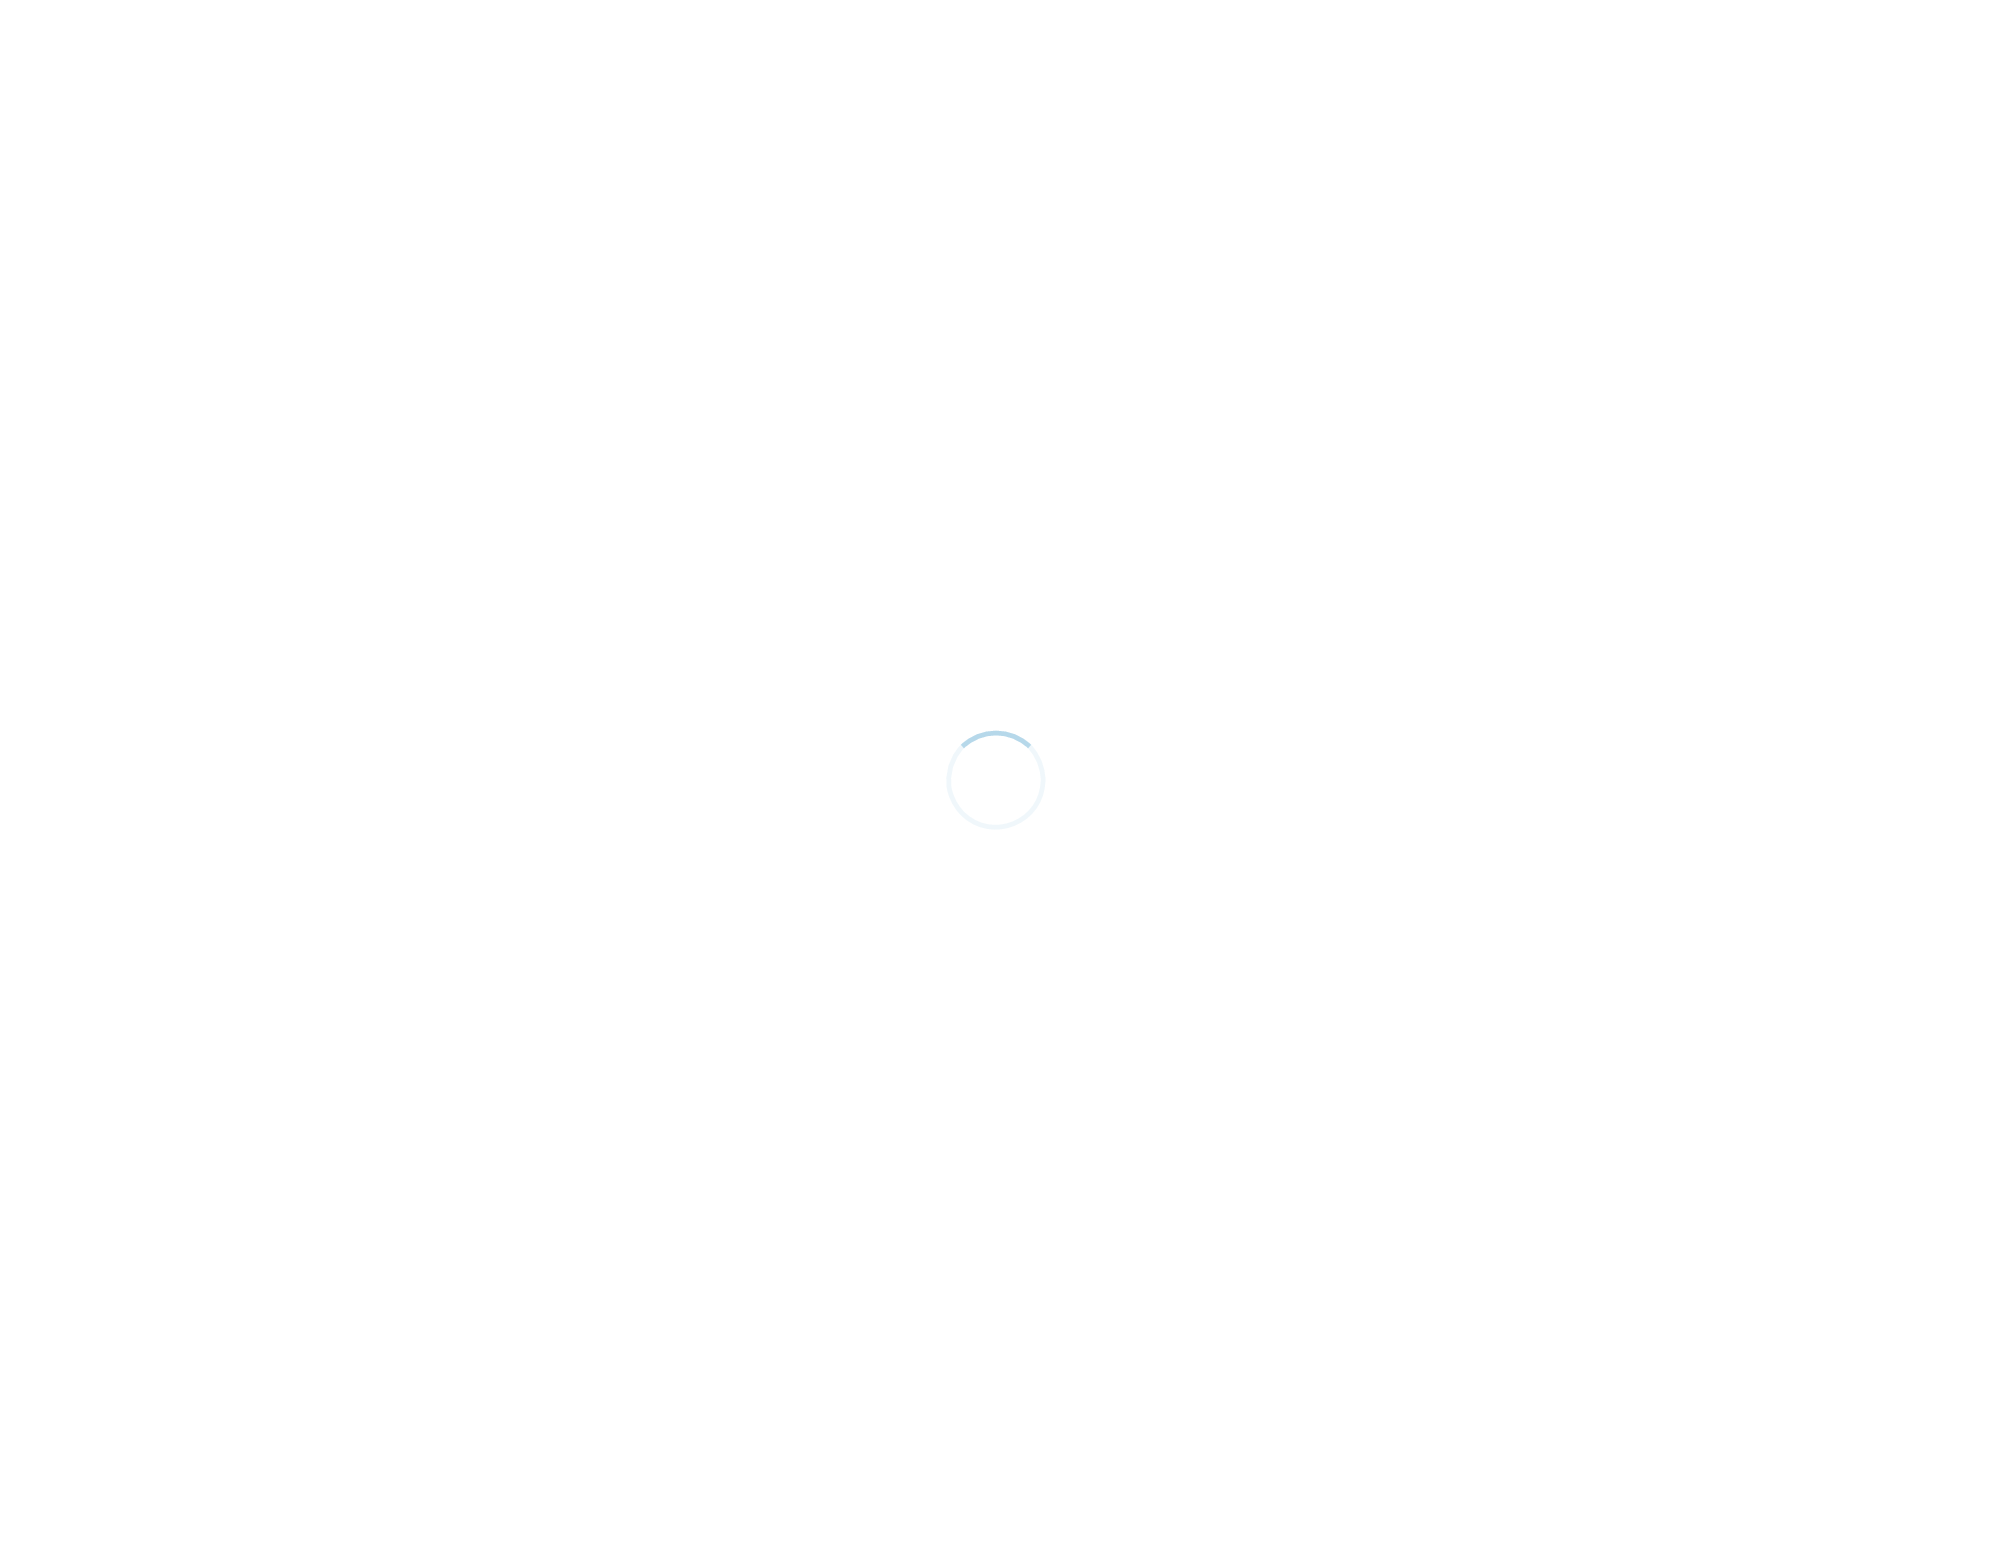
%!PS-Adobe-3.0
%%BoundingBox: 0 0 1990 1560
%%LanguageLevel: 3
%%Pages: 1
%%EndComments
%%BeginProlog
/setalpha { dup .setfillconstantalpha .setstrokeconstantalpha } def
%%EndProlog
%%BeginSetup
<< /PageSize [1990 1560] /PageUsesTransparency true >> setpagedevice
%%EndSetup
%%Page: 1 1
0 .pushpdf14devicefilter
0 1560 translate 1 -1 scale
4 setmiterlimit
1 setgray
0 0 1990 1560 rectfill
0.714 0.847 0.918 setrgbcolor
4.5 setlinewidth
newpath 962.5 746.5 moveto 981 728.5 1011 728.5 1029.5 746.5 curveto stroke
0.2 setalpha
newpath 1029.5 746.5 moveto 1038 755.5 1043 767.5 1043 780 curveto 1043 822 992 843 962.5 813.5 curveto 956 807 951.5 798.5 949.5 789.5 curveto 946.5 774 951.5 757.5 962.5 746.5 curveto stroke
.poppdf14devicefilter showpage
%%EOF
